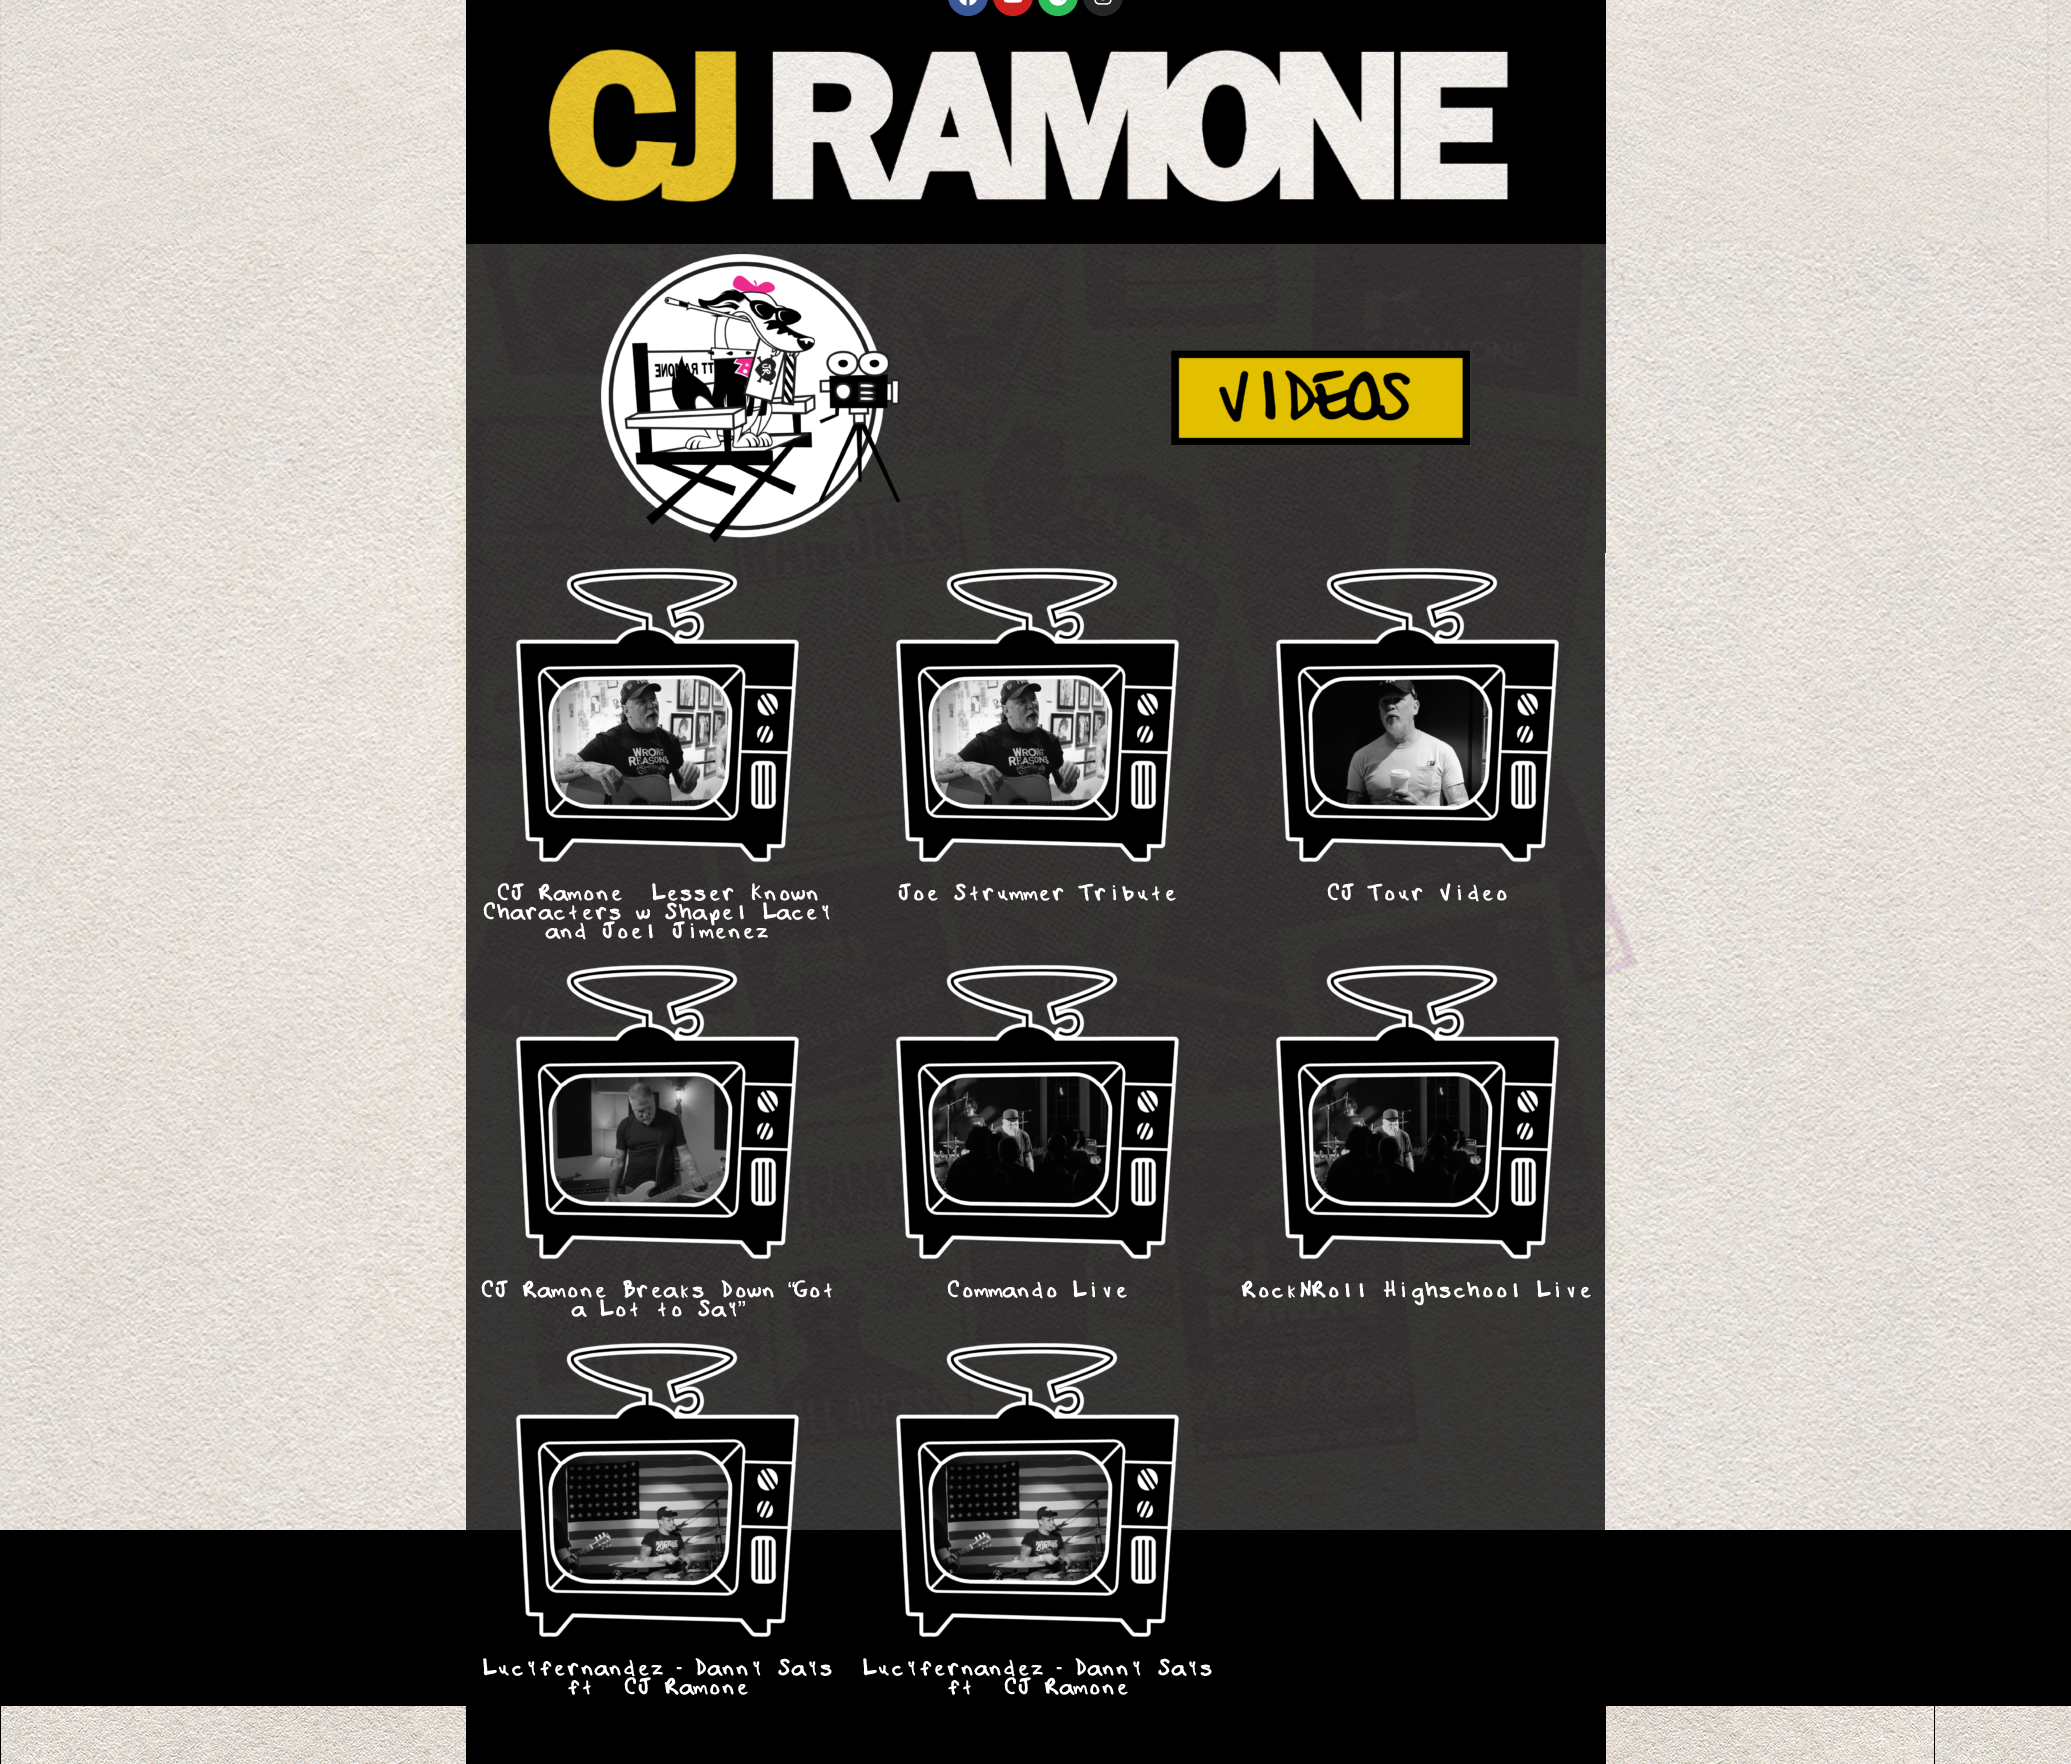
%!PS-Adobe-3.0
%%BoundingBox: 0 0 2071 1764
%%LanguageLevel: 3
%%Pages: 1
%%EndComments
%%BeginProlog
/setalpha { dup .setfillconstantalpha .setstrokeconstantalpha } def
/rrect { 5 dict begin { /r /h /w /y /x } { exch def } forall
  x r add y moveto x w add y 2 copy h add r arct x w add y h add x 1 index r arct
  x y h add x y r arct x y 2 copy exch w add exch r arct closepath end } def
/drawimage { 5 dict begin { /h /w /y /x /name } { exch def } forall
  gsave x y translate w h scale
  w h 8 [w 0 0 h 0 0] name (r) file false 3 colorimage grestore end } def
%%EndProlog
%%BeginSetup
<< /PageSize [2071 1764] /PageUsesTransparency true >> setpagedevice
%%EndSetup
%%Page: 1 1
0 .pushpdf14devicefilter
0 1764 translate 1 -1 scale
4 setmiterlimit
0 setgray
0 0 2071 1764 rectfill
(images/1.raw) 0 0 2071 1530 drawimage
(images/2.raw) 0 0 2071 244 drawimage
466 0 1140 244 rectfill
0.231 0.349 0.596 setrgbcolor
948 -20 40 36 20 rrect fill
(images/3.raw) 959 0 18 6 drawimage
0.804 0.125 0.122 setrgbcolor
993 -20 40 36 20 rrect fill
(images/4.raw) 1003 0 20 3 drawimage
0.18 0.741 0.349 setrgbcolor
1038 -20 40 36 20 rrect fill
(images/5.raw) 1049 0 18 6 drawimage
0.149 setgray
1083 -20 40 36 20 rrect fill
(images/6.raw) 1094 0 18 5 drawimage
(images/7.raw) 548 49 961 154 drawimage
0.76 setalpha
0 setgray
466 244 570 309 rectfill
1 setalpha
(images/8.raw) 601 254 300 289 drawimage
0.76 setalpha
1036 244 570 309 rectfill
1 setalpha
(images/9.raw) 1171 350 300 96 drawimage
0.76 setalpha
466 553 379 397 rectfill
1 setalpha
(images/10.raw) 515 567 284 296 drawimage
0.76 setalpha
845 553 380 397 rectfill
1 setalpha
(images/11.raw) 895 567 284 296 drawimage
0.76 setalpha
1225 553 380 397 rectfill
1 setalpha
(images/12.raw) 1275 567 284 296 drawimage
0.76 setalpha
466 950 379 378 rectfill
1 setalpha
(images/13.raw) 515 964 284 296 drawimage
0.76 setalpha
845 950 380 378 rectfill
1 setalpha
(images/14.raw) 895 964 284 296 drawimage
0.76 setalpha
1225 950 380 378 rectfill
1 setalpha
(images/15.raw) 1275 964 284 296 drawimage
0.76 setalpha
1225 1328 380 202 rectfill
466 1328 379 202 rectfill
1 setalpha
(images/16.raw) 515 1342 284 296 drawimage
0.76 setalpha
845 1328 380 202 rectfill
1 setalpha
(images/17.raw) 895 1342 284 296 drawimage
(images/18.raw) 1 1706 2070 58 drawimage
466 1706 1140 58 rectfill
/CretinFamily-Bold [19 0 0 -19 0 0] selectfont
1 setgray
494 898 moveto -5 0 (CJ) ashow
537 898 moveto -5 0 (Ramone) ashow
649 898 moveto -5 0 (Lesser Known) ashow
480 917 moveto -5 0 (Characters w Shapel Lacey) ashow
543 936 moveto -5 0 (and Joel Jimenez) ashow
895 898 moveto -5 0 (Joe Strummer Tribute) ashow
1324 898 moveto -5 0 (CJ Tour Video) ashow
478 1295 moveto -5 0 (CJ) ashow
521 1295 moveto -5 0 (Ramone Breaks Down) ashow
/LiberationSans-Bold [19 0 0 -19 0 0] selectfont
787 1295 moveto -5 0 (“) ashow
/CretinFamily-Bold [19 0 0 -19 0 0] selectfont
791 1295 moveto -5 0 (Got) ashow
569 1314 moveto -5 0 (a Lot to Say) ashow
/LiberationSans-Bold [19 0 0 -19 0 0] selectfont
737 1314 moveto -5 0 (”) ashow
/CretinFamily-Bold [19 0 0 -19 0 0] selectfont
944 1295 moveto -5 0 (Commando Live) ashow
1240 1295 moveto -5 0 (RockNRoll Highschool Live) ashow
480 1673 moveto -5 0 (Lucyfernandez) ashow
/LiberationSans-Bold [19 0 0 -19 0 0] selectfont
676 1673 moveto -5 0 (-) ashow
/CretinFamily-Bold [19 0 0 -19 0 0] selectfont
691 1673 moveto -5 0 (Danny Says) ashow
564 1692 moveto -5 0 (ft) ashow
621 1692 moveto -5 0 (CJ Ramone) ashow
860 1673 moveto -5 0 (Lucyfernandez) ashow
/LiberationSans-Bold [19 0 0 -19 0 0] selectfont
1056 1673 moveto -5 0 (-) ashow
/CretinFamily-Bold [19 0 0 -19 0 0] selectfont
1071 1673 moveto -5 0 (Danny Says) ashow
944 1692 moveto -5 0 (ft) ashow
1001 1692 moveto -5 0 (CJ Ramone) ashow
.poppdf14devicefilter showpage
%%EOF
